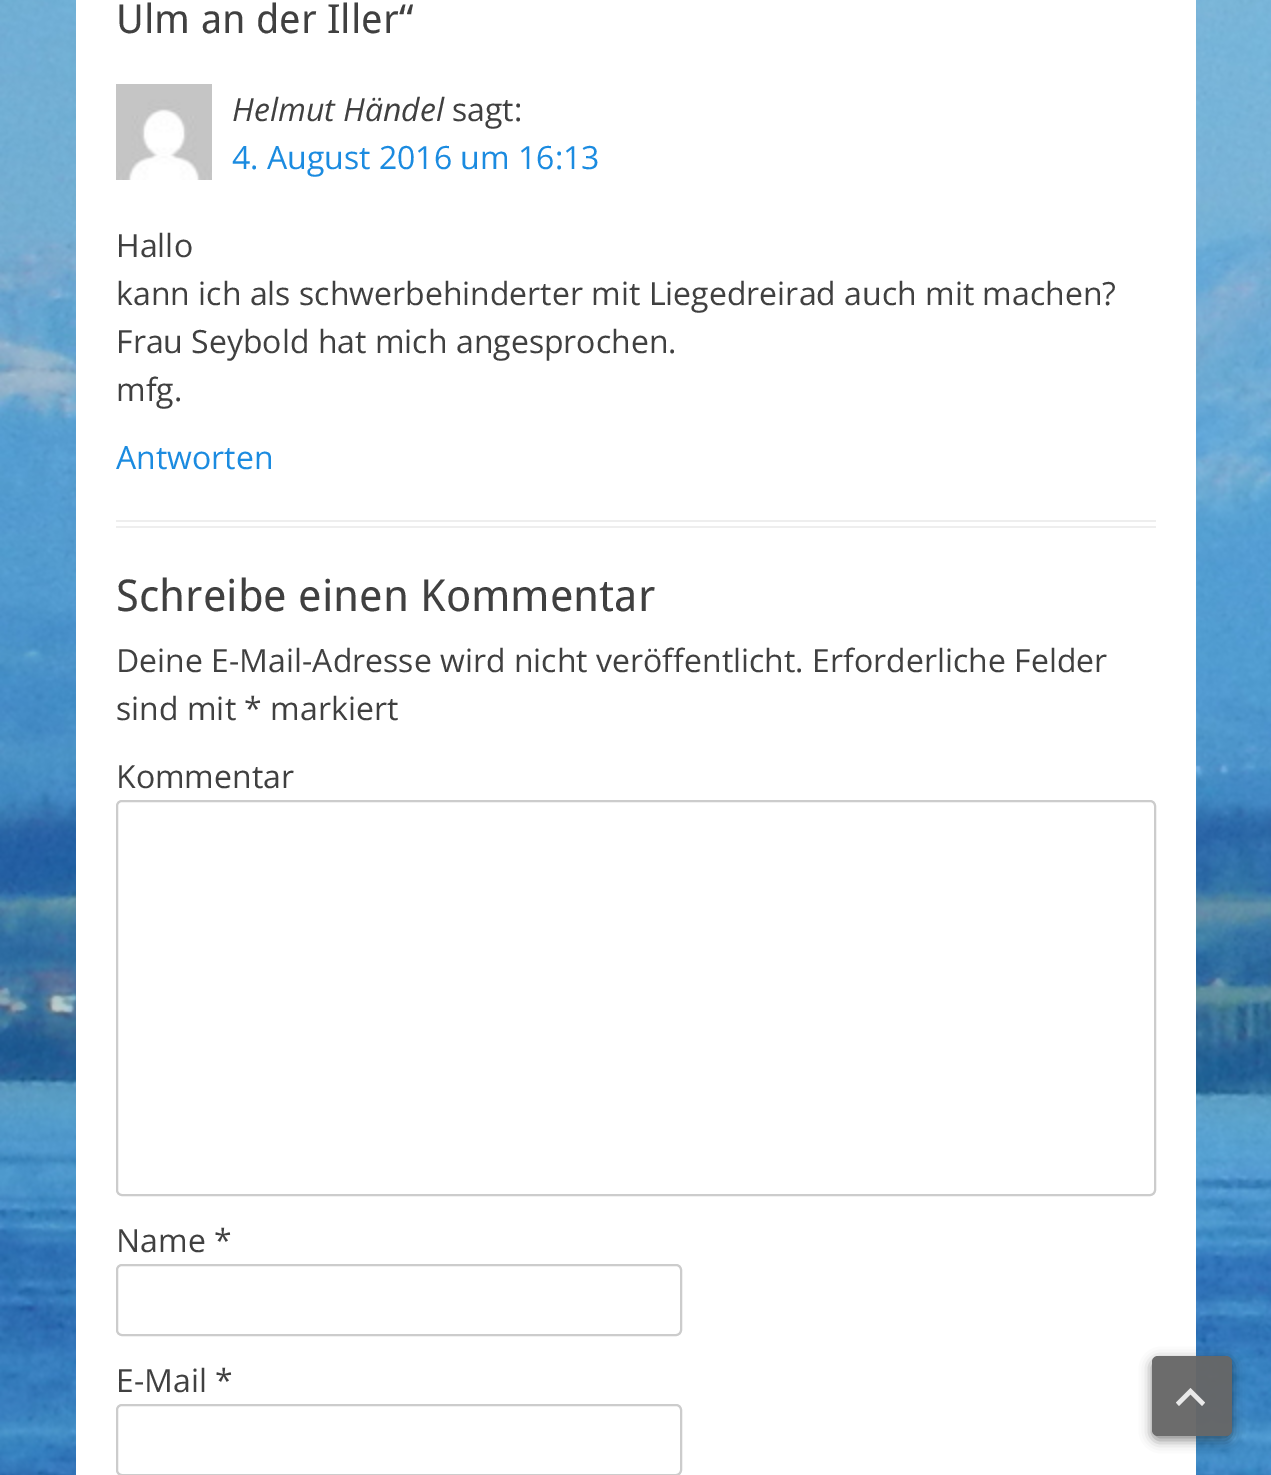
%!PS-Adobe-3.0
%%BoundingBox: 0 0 1271 1475
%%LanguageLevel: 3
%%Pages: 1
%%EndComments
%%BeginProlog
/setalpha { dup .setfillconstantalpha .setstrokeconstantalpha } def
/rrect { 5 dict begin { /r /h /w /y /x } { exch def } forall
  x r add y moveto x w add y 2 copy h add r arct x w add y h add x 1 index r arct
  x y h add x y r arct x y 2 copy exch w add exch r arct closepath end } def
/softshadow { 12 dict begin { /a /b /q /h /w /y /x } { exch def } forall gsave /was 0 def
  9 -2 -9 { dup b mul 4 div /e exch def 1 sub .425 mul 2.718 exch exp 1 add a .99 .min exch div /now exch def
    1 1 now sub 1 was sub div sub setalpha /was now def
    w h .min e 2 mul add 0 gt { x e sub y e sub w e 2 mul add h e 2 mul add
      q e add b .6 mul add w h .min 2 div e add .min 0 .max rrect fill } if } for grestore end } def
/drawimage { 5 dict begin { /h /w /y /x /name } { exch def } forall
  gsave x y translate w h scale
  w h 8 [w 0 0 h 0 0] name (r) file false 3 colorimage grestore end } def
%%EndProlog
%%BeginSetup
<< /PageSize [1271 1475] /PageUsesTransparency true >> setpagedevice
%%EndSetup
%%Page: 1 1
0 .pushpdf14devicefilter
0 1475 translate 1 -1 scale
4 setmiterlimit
1 setgray
0 0 1271 1475 rectfill
(images/1.raw) 0 0 1271 1475 drawimage
76 0 1120 1475 rectfill
0.933 setgray
116 520 1040 2 rectfill
116 526 1040 2 rectfill
(images/2.raw) 116 84 96 96 drawimage
0.8 setgray
2 setlinewidth
117 801 1038 394 5 rrect stroke
117 1265 564 70 5 rrect stroke
117 1405 564 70 5 rrect stroke
gsave
newpath 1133 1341 moveto 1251 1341 lineto 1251 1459 lineto 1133 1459 lineto closepath 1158 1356 moveto 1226 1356 lineto 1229.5 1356 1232 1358.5 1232 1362 curveto 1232 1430 lineto 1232 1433.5 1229.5 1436 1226 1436 curveto 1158 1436 lineto 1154.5 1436 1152 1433.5 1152 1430 curveto 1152 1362 lineto 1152 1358.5 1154.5 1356 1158 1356 curveto closepath eoclip newpath
0 setgray
1152 1360 80 80 6 6 0.48 softshadow
grestore
0.96 setalpha
0.4 setgray
1152 1356 80 80 6 rrect fill
0.933 setgray
newpath 1202 1406 moveto 1190.5 1394.5 lineto 1179 1406 lineto 1176 1402.5 lineto 1190.5 1388 lineto 1205 1402.5 lineto closepath fill
/DroidSans-Regular [40 0 0 -40 0 0] selectfont
1 setalpha
0.251 setgray
116 33 moveto (Ulm an der Iller“) show
/OpenSans-Italic [32 0 0 -32 0 0] selectfont
232 121 moveto (Helmut Händel) show
/OpenSans-Regular [32 0 0 -32 0 0] selectfont
452 121 moveto (sagt:) show
0.106 0.545 0.878 setrgbcolor
232 169 moveto (4. August 2016 um 16:13) show
0.251 setgray
116 257 moveto (Hallo) show
116 305 moveto (kann ich als schwerbehinderter mit Liegedreirad auch mit machen?) show
116 353 moveto (Frau Seybold hat mich angesprochen.) show
116 401 moveto (mfg.) show
0.106 0.545 0.878 setrgbcolor
116 469 moveto (Antworten) show
/DroidSans-Regular [44 0 0 -44 0 0] selectfont
0.251 setgray
116 611 moveto (Schreibe einen Kommentar) show
/OpenSans-Regular [32 0 0 -32 0 0] selectfont
116 672 moveto (Deine E-Mail-Adresse wird nicht veröffentlicht. Erforderliche Felder) show
116 720 moveto (sind mit * markiert) show
116 788 moveto (Kommentar) show
116 1252 moveto (Name *) show
116 1392 moveto (E-Mail *) show
.poppdf14devicefilter showpage
%%EOF
